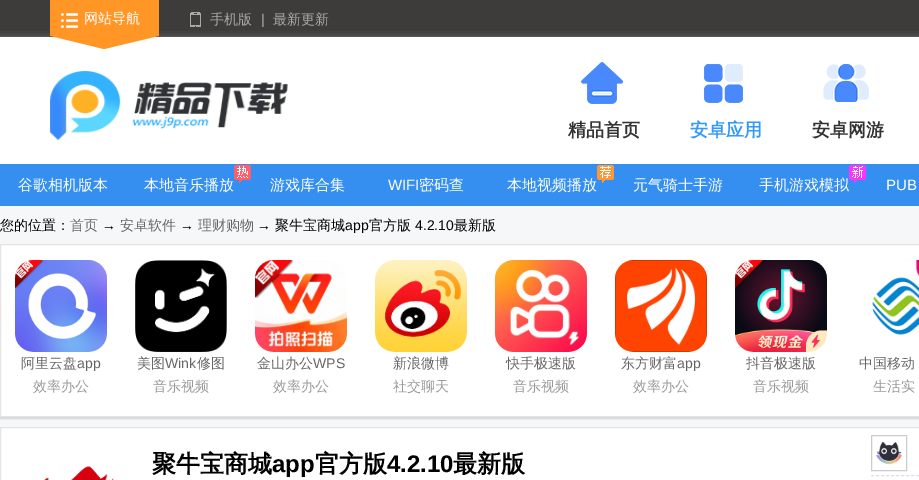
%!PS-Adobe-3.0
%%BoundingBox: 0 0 919 480
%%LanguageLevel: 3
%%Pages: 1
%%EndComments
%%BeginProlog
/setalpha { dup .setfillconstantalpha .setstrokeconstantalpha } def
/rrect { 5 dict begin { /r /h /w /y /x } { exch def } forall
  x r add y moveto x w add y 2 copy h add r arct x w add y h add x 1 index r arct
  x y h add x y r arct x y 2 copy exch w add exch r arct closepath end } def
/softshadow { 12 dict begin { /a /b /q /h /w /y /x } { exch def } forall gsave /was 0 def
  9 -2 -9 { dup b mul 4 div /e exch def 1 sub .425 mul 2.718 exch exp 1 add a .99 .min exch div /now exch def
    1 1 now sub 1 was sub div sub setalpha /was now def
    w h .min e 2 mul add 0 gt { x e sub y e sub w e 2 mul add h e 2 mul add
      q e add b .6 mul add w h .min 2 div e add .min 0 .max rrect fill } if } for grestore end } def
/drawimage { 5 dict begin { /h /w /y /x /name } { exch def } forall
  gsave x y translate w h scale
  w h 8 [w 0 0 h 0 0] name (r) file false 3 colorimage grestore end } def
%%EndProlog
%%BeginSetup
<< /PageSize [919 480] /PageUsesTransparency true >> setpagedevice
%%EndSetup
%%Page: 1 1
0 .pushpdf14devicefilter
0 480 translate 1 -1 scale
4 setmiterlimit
0.961 0.969 0.973 setrgbcolor
0 0 919 480 rectfill
0.239 0.235 0.227 setrgbcolor
0 0 919 37 rectfill
0.914 setgray
0 42 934 127 0 5 1 softshadow
1 setgray
0 37 919 127 rectfill
(images/1.raw) 50 0 109 49 drawimage
(images/2.raw) 190 12 11 15 drawimage
(images/3.raw) 50 71 238 70 drawimage
(images/4.raw) 581 62 42 42 drawimage
(images/5.raw) 704 64 39 39 drawimage
(images/6.raw) 823 64 46 47 drawimage
0.208 0.561 0.941 setrgbcolor
0 164 919 42 rectfill
(images/7.raw) 234 165 17 18 drawimage
(images/8.raw) 597 165 17 18 drawimage
(images/9.raw) 849 165 17 18 drawimage
0 setgray
0 246 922 173 0 1 0.15 softshadow
1 setgray
newpath 0.5 244.5 moveto 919.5 244.5 lineto 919.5 416.5 lineto 0.5 416.5 lineto closepath gsave fill grestore
0.898 0.89 0.89 setrgbcolor
stroke
(images/10.raw) 15 260 92 92 drawimage
(images/11.raw) 135 260 92 92 drawimage
(images/12.raw) 255 260 92 92 drawimage
(images/13.raw) 375 260 92 92 drawimage
(images/14.raw) 495 260 92 92 drawimage
(images/15.raw) 615 260 92 92 drawimage
(images/16.raw) 735 260 92 92 drawimage
(images/17.raw) 872 260 47 75 drawimage
1 setgray
newpath 0.5 427.5 moveto 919.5 427.5 lineto 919.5 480.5 lineto 0.5 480.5 lineto closepath gsave fill grestore
0.898 0.89 0.89 setrgbcolor
stroke
(images/18.raw) 44 466 70 14 drawimage
0.8 setgray
871.5 435.5 35 35 rectstroke
(images/19.raw) 876 441 26 24 drawimage
0.859 0.855 1 setrgbcolor
[3 2.03] 0 setdash
newpath 871 475.5 moveto 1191 475.5 lineto stroke
/WenQuanYiZenHei-Medium [14 0 0 -14 0 0] selectfont
1 setgray
84 23 moveto (网站导航) show
0.659 setgray
210 24 moveto (手机版) show
/LiberationSans-Regular [14 0 0 -14 0 0] selectfont
261 24 moveto (|) show
/WenQuanYiZenHei-Medium [14 0 0 -14 0 0] selectfont
273 24 moveto (最新更新) show
/WenQuanYiZenHei-Bold [18 0 0 -18 0 0] selectfont
0.2 setgray
568 136 moveto (精品首页) show
0.2 0.6 0.98 setrgbcolor
690 136 moveto (安卓应用) show
0.2 setgray
812 136 moveto (安卓网游) show
/WenQuanYiZenHei-Medium [15 0 0 -15 0 0] selectfont
1 setgray
18 190 moveto (谷歌相机版本) show
144 190 moveto (本地音乐播放) show
270 190 moveto (游戏库合集) show
/LiberationSans-Regular [15 0 0 -15 0 0] selectfont
388 190 moveto (WIFI) show
/WenQuanYiZenHei-Medium [15 0 0 -15 0 0] selectfont
419 190 moveto (密码查) show
507 190 moveto (本地视频播放) show
633 190 moveto (元气骑士手游) show
759 190 moveto (手机游戏模拟) show
/LiberationSans-Regular [15 0 0 -15 0 0] selectfont
886 190 moveto (PUB) show
/WenQuanYiZenHei-Medium [14 0 0 -14 0 0] selectfont
0 setgray
0 230 moveto (您的位置：) show
0.4 setgray
70 230 moveto (首页) show
/LiberationSans-Regular [14 0 0 -14 0 0] selectfont
0 setgray
102 230 moveto (→) show
/WenQuanYiZenHei-Medium [14 0 0 -14 0 0] selectfont
0.4 setgray
120 230 moveto (安卓软件) show
/LiberationSans-Regular [14 0 0 -14 0 0] selectfont
0 setgray
180 230 moveto (→) show
/WenQuanYiZenHei-Medium [14 0 0 -14 0 0] selectfont
0.4 setgray
198 230 moveto (理财购物) show
/LiberationSans-Regular [14 0 0 -14 0 0] selectfont
0 setgray
257 230 moveto (→) show
/WenQuanYiZenHei-Medium [14 0 0 -14 0 0] selectfont
275 230 moveto (聚牛宝商城) show
/LiberationSans-Regular [14 0 0 -14 0 0] selectfont
345 230 moveto (app) show
/WenQuanYiZenHei-Medium [14 0 0 -14 0 0] selectfont
369 230 moveto (官方版) show
/LiberationSans-Regular [14 0 0 -14 0 0] selectfont
415 230 moveto (4.2.10) show
/WenQuanYiZenHei-Medium [14 0 0 -14 0 0] selectfont
454 230 moveto (最新版) show
0.4 setgray
21 368 moveto (阿里云盘) show
/LiberationSans-Regular [14 0 0 -14 0 0] selectfont
77 368 moveto (app) show
/WenQuanYiZenHei-Medium [14 0 0 -14 0 0] selectfont
0.6 setgray
33 391 moveto (效率办公) show
0.4 setgray
137 368 moveto (美图) show
/LiberationSans-Regular [14 0 0 -14 0 0] selectfont
165 368 moveto (Wink) show
/WenQuanYiZenHei-Medium [14 0 0 -14 0 0] selectfont
197 368 moveto (修图) show
0.6 setgray
153 391 moveto (音乐视频) show
0.4 setgray
257 368 moveto (金山办公) show
/LiberationSans-Regular [14 0 0 -14 0 0] selectfont
313 368 moveto (WPS) show
/WenQuanYiZenHei-Medium [14 0 0 -14 0 0] selectfont
0.6 setgray
273 391 moveto (效率办公) show
0.4 setgray
393 368 moveto (新浪微博) show
0.6 setgray
393 391 moveto (社交聊天) show
0.4 setgray
506 368 moveto (快手极速版) show
0.6 setgray
513 391 moveto (音乐视频) show
0.4 setgray
621 368 moveto (东方财富) show
/LiberationSans-Regular [14 0 0 -14 0 0] selectfont
677 368 moveto (app) show
/WenQuanYiZenHei-Medium [14 0 0 -14 0 0] selectfont
0.6 setgray
633 391 moveto (效率办公) show
0.4 setgray
746 368 moveto (抖音极速版) show
0.6 setgray
753 391 moveto (音乐视频) show
0.4 setgray
859 368 moveto (中国移动) show
0.6 setgray
873 391 moveto (生活实) show
/WenQuanYiZenHei-Bold [24 0 0 -24 0 0] selectfont
0 setgray
152 472 moveto (聚牛宝商城) show
/LiberationSans-Bold [24 0 0 -24 0 0] selectfont
272 472 moveto (app) show
/WenQuanYiZenHei-Bold [24 0 0 -24 0 0] selectfont
315 472 moveto (官方版) show
/LiberationSans-Bold [24 0 0 -24 0 0] selectfont
387 472 moveto (4.2.10) show
/WenQuanYiZenHei-Bold [24 0 0 -24 0 0] selectfont
453 472 moveto (最新版) show
.poppdf14devicefilter showpage
%%EOF
